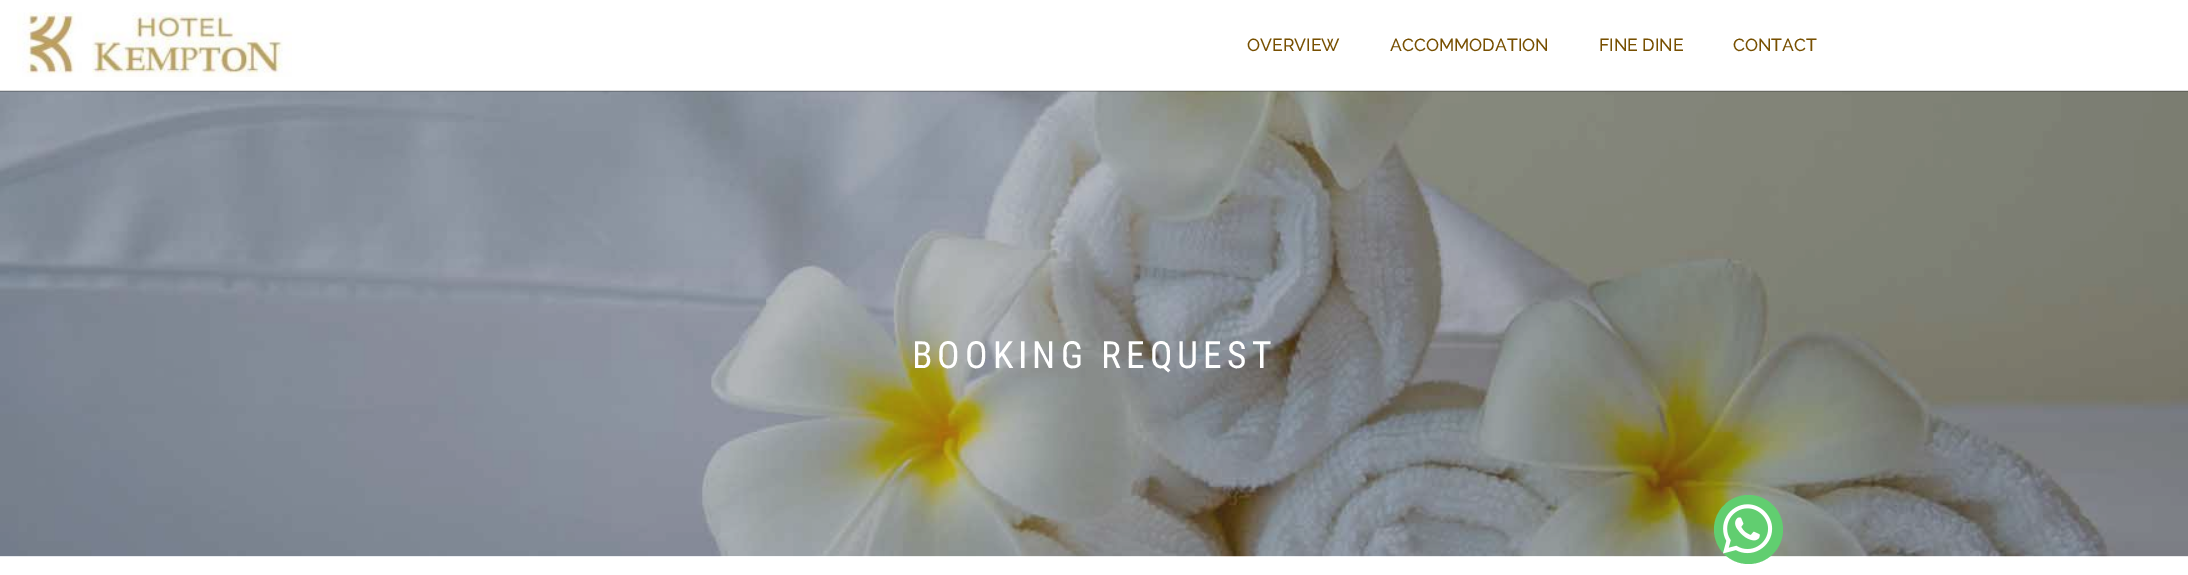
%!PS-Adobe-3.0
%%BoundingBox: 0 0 2188 575
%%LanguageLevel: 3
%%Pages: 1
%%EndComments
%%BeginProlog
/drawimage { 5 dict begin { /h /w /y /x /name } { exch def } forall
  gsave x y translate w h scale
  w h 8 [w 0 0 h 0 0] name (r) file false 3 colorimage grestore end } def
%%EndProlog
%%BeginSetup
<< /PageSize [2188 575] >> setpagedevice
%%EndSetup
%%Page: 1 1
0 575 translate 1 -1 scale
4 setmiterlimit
1 setgray
0 0 2188 575 rectfill
0.851 setgray
0 90 2188 1 rectfill
(images/1.raw) 17 12 275 65 drawimage
(images/2.raw) 0 91 2188 466 drawimage
0.38 0.808 0.439 setrgbcolor
newpath 1748.5 529.5 34.5 0 360 arc closepath fill
(images/3.raw) 1723 504 50 50 drawimage
/Raleway-Medium [17.5 0 0 -17.5 0 0] selectfont
0.467 0.31 0 setrgbcolor
1247 51 moveto (OVERVIEW) show
1390 51 moveto (ACCOMMODATION) show
1599 51 moveto (FINE DINE) show
1733 51 moveto (CONTACT) show
/RobotoCondensed-Regular [37.5 0 0 -37.5 0 0] selectfont
1 setgray
912 368 moveto 5 0 (BOOKING REQUEST) ashow
showpage
%%EOF
